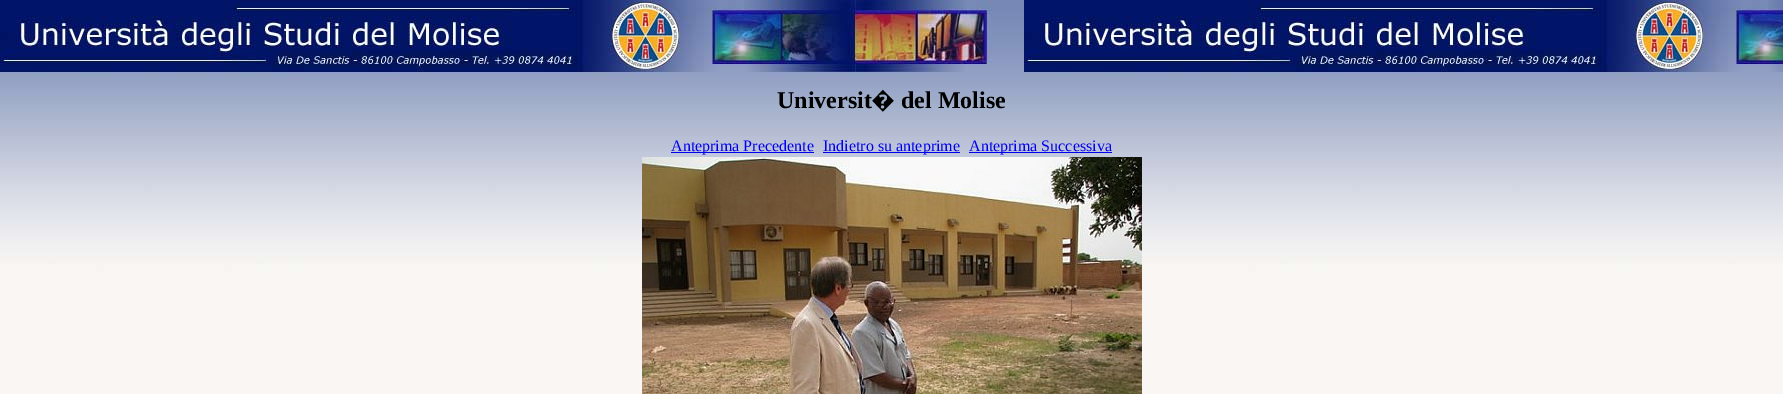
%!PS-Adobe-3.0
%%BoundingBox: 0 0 1783 394
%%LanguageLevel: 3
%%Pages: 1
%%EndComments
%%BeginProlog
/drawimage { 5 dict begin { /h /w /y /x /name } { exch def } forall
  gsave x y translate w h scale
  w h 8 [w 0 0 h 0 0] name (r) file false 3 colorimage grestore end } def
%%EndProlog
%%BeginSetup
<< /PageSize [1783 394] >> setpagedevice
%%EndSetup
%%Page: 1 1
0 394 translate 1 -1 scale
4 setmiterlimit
1 setgray
0 0 1783 394 rectfill
(images/1.raw) 0 0 1783 394 drawimage
0 0 0.933 setrgbcolor
671 152 143 1 rectfill
823 152 137 1 rectfill
969 152 143 1 rectfill
(images/2.raw) 642 157 500 237 drawimage
/LiberationSerif-Bold [24 0 0 -24 0 0] selectfont
0 setgray
777 108 moveto (Universit) show
/NotoSans-Bold [24 0 0 -24 0 0] selectfont
871 108 moveto (�) show
/LiberationSerif-Bold [24 0 0 -24 0 0] selectfont
901 108 moveto (del Molise) show
/LiberationSerif-Regular [16 0 0 -16 0 0] selectfont
0 0 0.933 setrgbcolor
671 151 moveto (Anteprima Precedente) show
823 151 moveto (Indietro su anteprime) show
969 151 moveto (Anteprima Successiva) show
showpage
%%EOF
